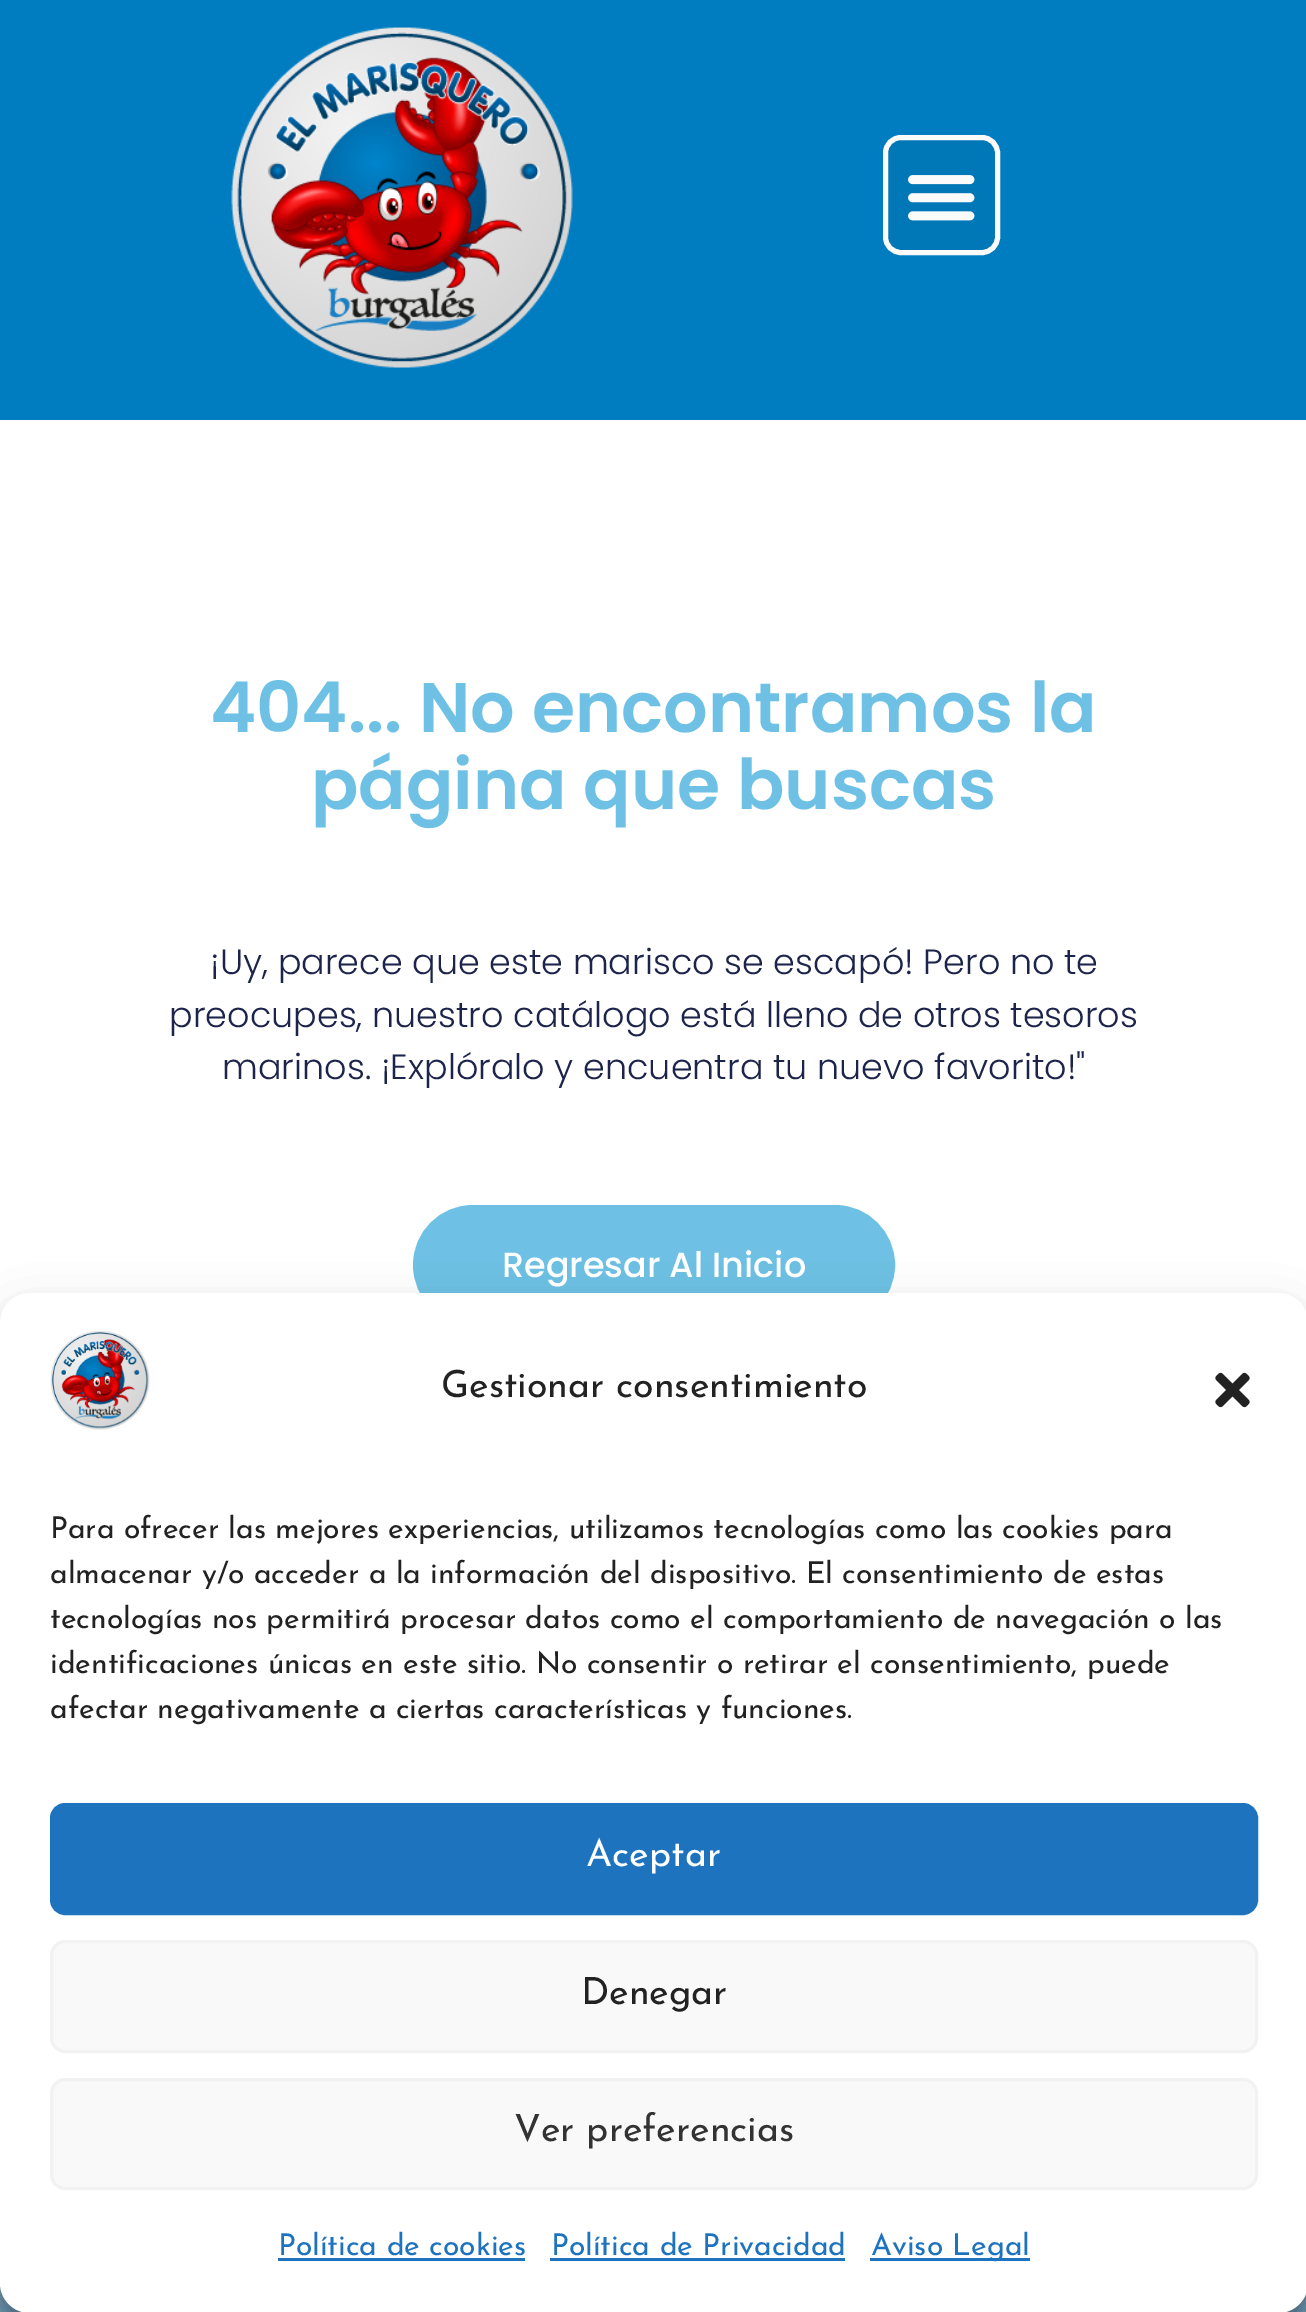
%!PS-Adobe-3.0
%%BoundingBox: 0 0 1306 2312
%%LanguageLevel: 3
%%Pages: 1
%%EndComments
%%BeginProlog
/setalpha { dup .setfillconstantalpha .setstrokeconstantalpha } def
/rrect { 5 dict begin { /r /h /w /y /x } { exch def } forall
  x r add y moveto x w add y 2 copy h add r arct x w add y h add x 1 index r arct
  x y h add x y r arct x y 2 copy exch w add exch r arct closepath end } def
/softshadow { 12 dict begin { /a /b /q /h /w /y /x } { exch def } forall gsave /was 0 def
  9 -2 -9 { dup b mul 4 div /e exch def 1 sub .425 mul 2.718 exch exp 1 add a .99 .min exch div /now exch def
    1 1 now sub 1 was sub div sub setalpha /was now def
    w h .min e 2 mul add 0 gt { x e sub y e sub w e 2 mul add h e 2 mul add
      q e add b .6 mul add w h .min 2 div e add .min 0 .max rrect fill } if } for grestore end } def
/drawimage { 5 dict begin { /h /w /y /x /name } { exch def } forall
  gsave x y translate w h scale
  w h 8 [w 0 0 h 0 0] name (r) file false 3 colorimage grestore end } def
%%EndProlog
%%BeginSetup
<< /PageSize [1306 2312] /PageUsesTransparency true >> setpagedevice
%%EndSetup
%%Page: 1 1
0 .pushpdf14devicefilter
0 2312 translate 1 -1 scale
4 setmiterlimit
1 setgray
0 0 1306 2312 rectfill
0 0.49 0.757 setrgbcolor
0 0 1306 420 rectfill
(images/1.raw) 231 27 342 341 drawimage
0 0.467 0.718 setrgbcolor
885.5 137.5 112 115 15.5 rrect gsave fill grestore
0.984 setgray
5 setlinewidth
stroke
(images/2.raw) 908 175 67 46 drawimage
0.431 0.757 0.894 setrgbcolor
414.5 1206.5 479 117 58.5 rrect gsave fill grestore
3 setlinewidth
stroke
(images/5.raw) 0 2283 1306 29 drawimage
0 setgray
0 1308 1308 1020 30 7.5 0.23 softshadow
0 1318 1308 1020 30 25 0.19 softshadow
1 setgray
0 1293 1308 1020 30 rrect fill
(images/3.raw) 50 1331 100 99 drawimage
(images/4.raw) 1215 1372 35 36 drawimage
0.118 0.451 0.745 setrgbcolor
51.5 1804.5 1205 109 13.5 rrect gsave fill grestore
stroke
0.976 setgray
51.5 1941.5 1205 110 13.5 rrect gsave fill grestore
0.949 setgray
stroke
0.976 setgray
51.5 2079.5 1205 109 13.5 rrect gsave fill grestore
0.949 setgray
stroke
0.118 0.451 0.745 setrgbcolor
278 2258 247 3 rectfill
550 2258 295 3 rectfill
870 2258 160 3 rectfill
/Poppins-SemiBold [70 0 0 -70 0 0] selectfont
0.431 0.757 0.894 setrgbcolor
210 732 moveto (404... No encontramos la) show
311 809 moveto (página que buscas) show
/Poppins-Light [35 0 0 -35 0 0] selectfont
0.11 0.141 0.294 setrgbcolor
210 974 moveto (¡Uy, parece que este marisco se escapó! Pero no te) show
169 1027 moveto (preocupes, nuestro catálogo está lleno de otros tesoros) show
222 1079 moveto (marinos. ¡Explóralo y encuentra tu nuevo favorito!") show
/Poppins-Medium [35 0 0 -35 0 0] selectfont
1 setgray
502 1277 moveto (Regresar Al Inicio) show
/JosefinSans-Regular [37.5 0 0 -37.5 0 0] selectfont
0.133 setgray
441 1397 moveto (Gestionar consentimiento) show
/JosefinSans-Regular [30 0 0 -30 0 0] selectfont
50 1538 moveto (Para ofrecer las mejores experiencias, utilizamos tecnologías como las cookies para) show
50 1583 moveto (almacenar y/o acceder a la información del dispositivo. El consentimiento de estas) show
50 1628 moveto (tecnologías nos permitirá procesar datos como el comportamiento de navegación o las) show
50 1673 moveto (identificaciones únicas en este sitio. No consentir o retirar el consentimiento, puede) show
50 1718 moveto (afectar negativamente a ciertas características y funciones.) show
/JosefinSans-Regular [37.5 0 0 -37.5 0 0] selectfont
1 setgray
586 1866 moveto (Aceptar) show
0.133 setgray
581 2004 moveto (Denegar) show
0.2 setgray
514 2141 moveto (Ver preferencias) show
/JosefinSans-Regular [30 0 0 -30 0 0] selectfont
0.118 0.451 0.745 setrgbcolor
278 2255 moveto (Política de cookies) show
551 2255 moveto (Política de Privacidad) show
871 2255 moveto (Aviso Legal) show
.poppdf14devicefilter showpage
%%EOF
